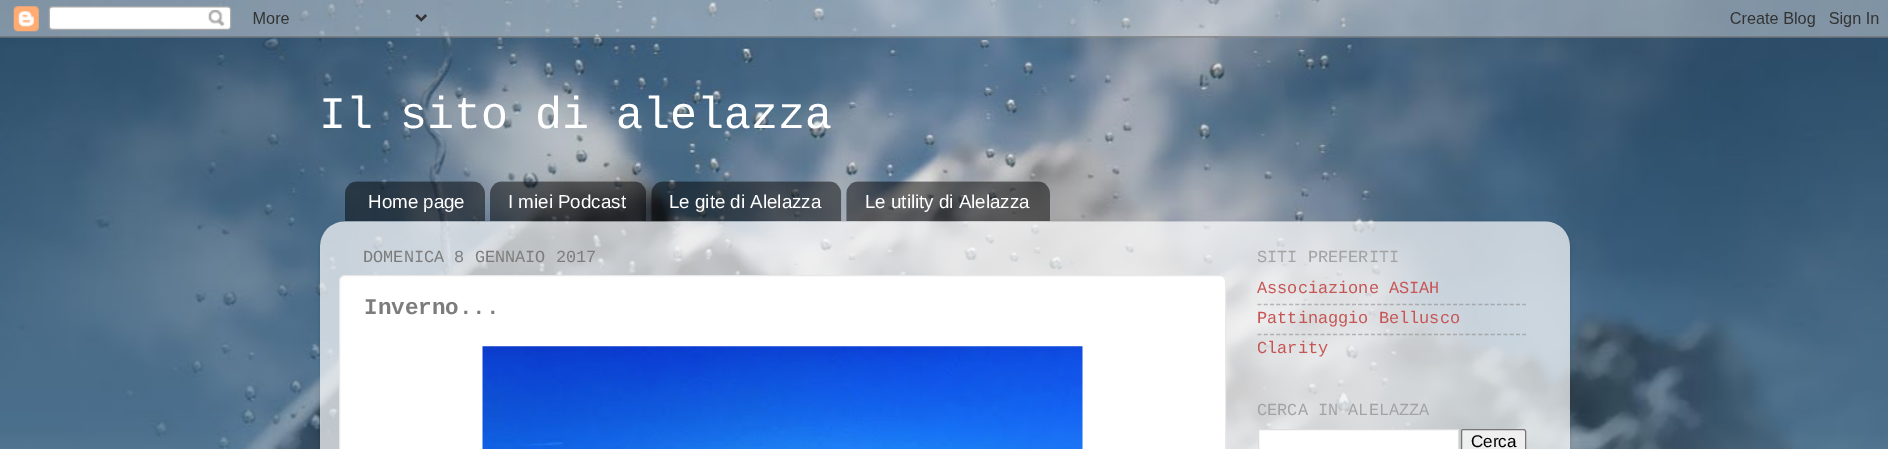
%!PS-Adobe-3.0
%%BoundingBox: 0 0 1888 449
%%LanguageLevel: 3
%%Pages: 1
%%EndComments
%%BeginProlog
/setalpha { dup .setfillconstantalpha .setstrokeconstantalpha } def
/rrect { 5 dict begin { /r /h /w /y /x } { exch def } forall
  x r add y moveto x w add y 2 copy h add r arct x w add y h add x 1 index r arct
  x y h add x y r arct x y 2 copy exch w add exch r arct closepath end } def
/softshadow { 12 dict begin { /a /b /q /h /w /y /x } { exch def } forall gsave /was 0 def
  9 -2 -9 { dup b mul 4 div /e exch def 1 sub .425 mul 2.718 exch exp 1 add a .99 .min exch div /now exch def
    1 1 now sub 1 was sub div sub setalpha /was now def
    w h .min e 2 mul add 0 gt { x e sub y e sub w e 2 mul add h e 2 mul add
      q e add b .6 mul add w h .min 2 div e add .min 0 .max rrect fill } if } for grestore end } def
/drawimage { 5 dict begin { /h /w /y /x /name } { exch def } forall
  gsave x y translate w h scale
  w h 8 [w 0 0 h 0 0] name (r) file false 3 colorimage grestore end } def
%%EndProlog
%%BeginSetup
<< /PageSize [1888 449] /PageUsesTransparency true >> setpagedevice
%%EndSetup
%%Page: 1 1
0 .pushpdf14devicefilter
0 449 translate 1 -1 scale
4 setmiterlimit
1 setgray
0 0 1888 449 rectfill
(images/1.raw) 0 0 1888 449 drawimage
(images/2.raw) 0 0 1888 38 drawimage
(images/3.raw) 345 181 140 40 drawimage
(images/4.raw) 490 181 156 40 drawimage
(images/5.raw) 651 181 191 40 drawimage
(images/6.raw) 846 181 204 40 drawimage
gsave
newpath 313 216 moveto 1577 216 lineto 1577 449 lineto 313 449 lineto closepath 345 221 moveto 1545 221 lineto 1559 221 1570 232 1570 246 curveto 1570 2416 lineto 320 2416 lineto 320 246 lineto 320 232 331 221 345 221 curveto closepath eoclip newpath
0 setgray
320 223 1250 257 25 2 0.15 softshadow
grestore
(images/7.raw) 320 221 1250 228 drawimage
339.5 275.5 886 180 5.5 rrect gsave fill grestore
0.91 setgray
stroke
(images/8.raw) 482 346 601 103 drawimage
0.5 setalpha
0.502 setgray
1.2 setlinewidth
[3.75 2.56] 0 setdash
newpath 1257.5 304.5 moveto 1526 304.5 lineto stroke
newpath 1257.5 334.5 moveto 1526 334.5 lineto stroke
1 setalpha
1 setgray
newpath 1258.5 429.5 moveto 1458.5 429.5 lineto 1458.5 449.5 lineto 1258.5 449.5 lineto closepath gsave fill grestore
0.867 setgray
1 setlinewidth
[] 0 setdash
stroke
0.937 setgray
1461.5 429.5 64 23 2 rrect gsave fill grestore
0.463 setgray
stroke
/LiberationMono-Regular [45 0 0 -45 0 0] selectfont
1 setgray
319 128 moveto (Il sito di alelazza) show
/LiberationSans-Regular [18.75 0 0 -18.75 0 0] selectfont
368 208 moveto (Home page) show
508 208 moveto (I miei Podcast) show
669 208 moveto (Le gite di Alelazza) show
865 208 moveto (Le utility di Alelazza) show
/LiberationMono-Regular [16.9 0 0 -16.9 0 0] selectfont
0.486 setgray
363 262 moveto (DOMENICA 8 GENNAIO 2017) show
/LiberationMono-Bold [22.5 0 0 -22.5 0 0] selectfont
364 314 moveto (Inverno...) show
/LiberationMono-Regular [16.9 0 0 -16.9 0 0] selectfont
0.639 setgray
1257 262 moveto (SITI PREFERITI) show
0.776 0.333 0.333 setrgbcolor
1257 293 moveto (Associazione ASIAH) show
1257 323 moveto (Pattinaggio Bellusco) show
1257 353 moveto (Clarity) show
0.639 setgray
1257 415 moveto (CERCA IN ALELAZZA) show
/LiberationSans-Regular [17 0 0 -17 0 0] selectfont
0 setgray
1471 447 moveto (Cerca) show
.poppdf14devicefilter showpage
%%EOF
